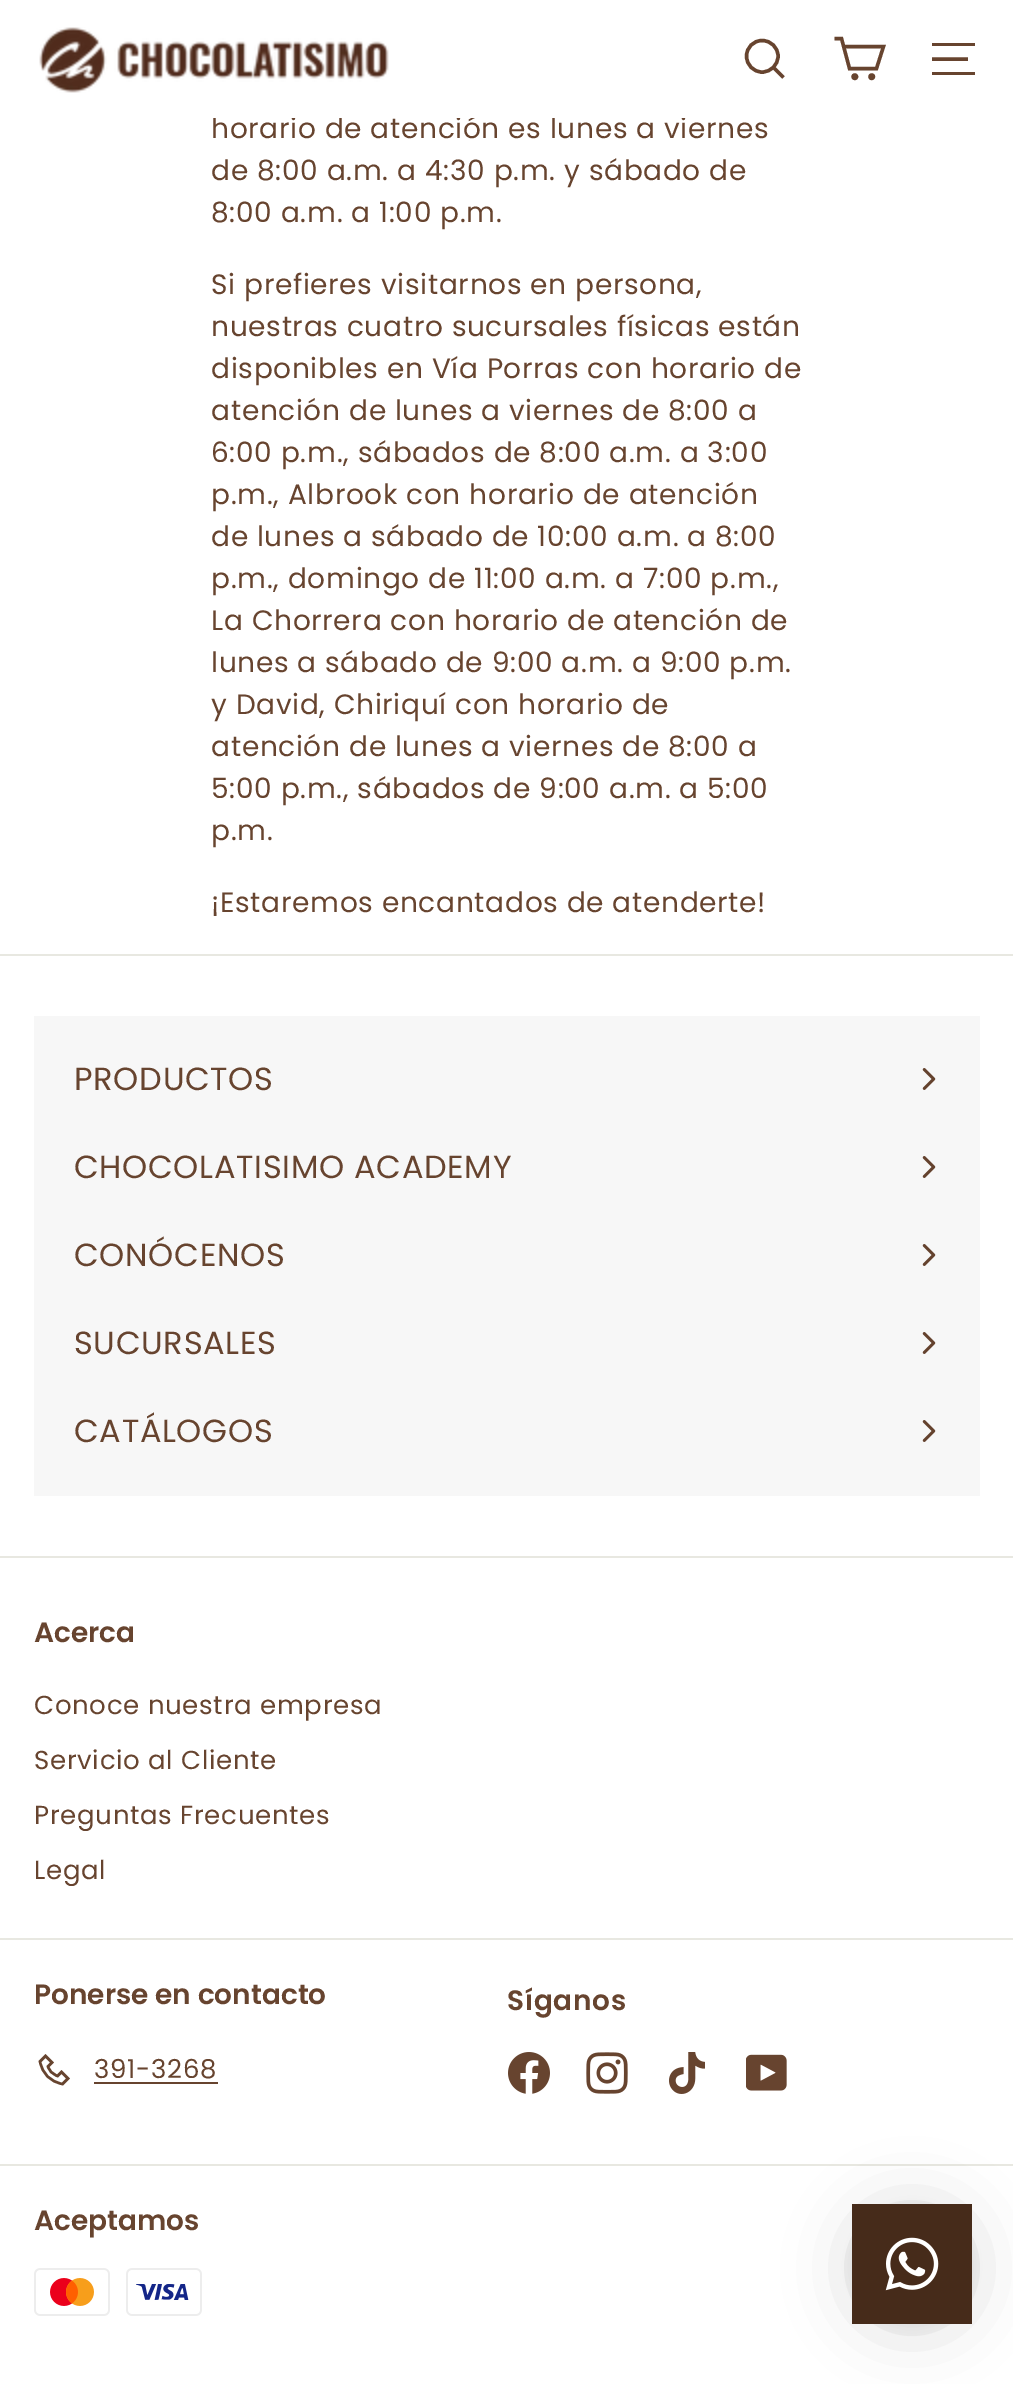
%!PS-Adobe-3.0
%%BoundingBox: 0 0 1013 2384
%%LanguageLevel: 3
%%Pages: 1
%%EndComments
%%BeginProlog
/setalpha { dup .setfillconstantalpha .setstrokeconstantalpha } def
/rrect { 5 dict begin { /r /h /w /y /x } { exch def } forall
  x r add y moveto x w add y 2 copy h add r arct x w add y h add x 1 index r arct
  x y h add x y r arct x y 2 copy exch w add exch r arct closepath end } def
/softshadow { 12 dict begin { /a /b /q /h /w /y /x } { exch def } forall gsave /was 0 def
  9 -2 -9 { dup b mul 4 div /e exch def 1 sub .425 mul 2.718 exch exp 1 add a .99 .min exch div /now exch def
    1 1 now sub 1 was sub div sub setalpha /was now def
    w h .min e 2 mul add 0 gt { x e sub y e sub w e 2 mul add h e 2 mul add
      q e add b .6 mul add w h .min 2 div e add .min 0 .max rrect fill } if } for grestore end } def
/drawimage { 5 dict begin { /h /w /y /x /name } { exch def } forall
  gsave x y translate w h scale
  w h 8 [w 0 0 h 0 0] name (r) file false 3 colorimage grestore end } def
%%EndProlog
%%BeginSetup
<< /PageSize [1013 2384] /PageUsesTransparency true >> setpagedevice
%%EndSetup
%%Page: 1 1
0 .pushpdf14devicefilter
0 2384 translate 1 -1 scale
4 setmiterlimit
1 setgray
0 0 1013 2384 rectfill
(images/1.raw) 39 27 350 66 drawimage
0.404 0.267 0.184 setrgbcolor
3.4 setlinewidth
newpath 778 56 moveto 778 65 771 72 762 72 curveto 753.5 72 746.5 65 746.5 56 curveto 746.5 47.5 753.5 40.5 762 40.5 curveto 771 40.5 778 47.5 778 56 curveto 783.5 77.5 moveto 773.5 67.5 lineto stroke
newpath 844 46.5 moveto 883.5 46.5 lineto 876.5 68.5 lineto 849.5 68.5 lineto 841.5 38.5 lineto 834.5 38.5 lineto stroke
newpath 854.8 76.7 1.7 0 360 arc closepath stroke
newpath 871.7 76.7 1.7 0 360 arc closepath stroke
932 43 43 3 rectfill
newpath 932 59 moveto 968 59 lineto stroke
932 72 43 3 rectfill
0.91 0.91 0.882 setrgbcolor
0 954 1013 2 rectfill
(images/2.raw) 922 1068 14 22 drawimage
(images/2.raw) 922 1156 14 22 drawimage
(images/2.raw) 922 1244 14 22 drawimage
(images/2.raw) 922 1332 14 22 drawimage
(images/2.raw) 922 1420 14 22 drawimage
0.03 setalpha
0 setgray
34 1016 946 480 rectfill
1 setalpha
0.91 0.91 0.882 setrgbcolor
0 1556 1013 2 rectfill
0 1938 1013 2 rectfill
0.404 0.267 0.184 setrgbcolor
2.5 setlinewidth
newpath 45.5 2056 moveto 52 2062.5 lineto 48 2066.5 lineto 49 2070.5 52 2074 57.5 2076 curveto 61.5 2072 lineto 68 2078.5 lineto 62.5 2084 lineto 50 2081.5 42.5 2074 40 2061.5 curveto closepath stroke
94 2082 124 2 rectfill
(images/3.raw) 508 2052 42 42 drawimage
(images/4.raw) 586 2052 42 42 drawimage
(images/5.raw) 669 2052 36 42 drawimage
(images/6.raw) 746 2054 41 37 drawimage
0.91 0.91 0.882 setrgbcolor
0 2164 1013 2 rectfill
(images/7.raw) 34 2268 76 48 drawimage
(images/8.raw) 126 2268 76 48 drawimage
0 setgray
852 2208 120 120 60 32 0.16 softshadow
852 2206 120 120 60 6 0.06 softshadow
0.275 0.169 0.102 setrgbcolor
852 2204 120 120 rectfill
(images/9.raw) 885 2237 54 54 drawimage
/Poppins-Regular [28 0 0 -28 0 0] selectfont
0.404 0.267 0.184 setrgbcolor
211 138 moveto 0.7 0 (horario de atención es lunes a viernes) ashow
1 setgray
213 116 473 2 rectfill
0.404 0.267 0.184 setrgbcolor
211 180 moveto 0.7 0 (de 8:00 a.m. a 4:30 p.m. y sábado de) ashow
211 222 moveto 0.7 0 (8:00 a.m. a 1:00 p.m.) ashow
211 294 moveto 0.7 0 (Si prefieres visitarnos en persona,) ashow
211 336 moveto 0.7 0 (nuestras cuatro sucursales físicas están) ashow
211 378 moveto 0.7 0 (disponibles en Vía Porras con horario de) ashow
211 420 moveto 0.7 0 (atención de lunes a viernes de 8:00 a) ashow
211 462 moveto 0.7 0 (6:00 p.m., sábados de 8:00 a.m. a 3:00) ashow
211 504 moveto 0.7 0 (p.m., Albrook con horario de atención) ashow
211 546 moveto 0.7 0 (de lunes a sábado de 10:00 a.m. a 8:00) ashow
211 588 moveto 0.7 0 (p.m., domingo de 11:00 a.m. a 7:00 p.m.,) ashow
211 630 moveto 0.7 0 (La Chorrera con horario de atención de) ashow
211 672 moveto 0.7 0 (lunes a sábado de 9:00 a.m. a 9:00 p.m.) ashow
211 714 moveto 0.7 0 (y David, Chiriquí con horario de) ashow
211 756 moveto 0.7 0 (atención de lunes a viernes de 8:00 a) ashow
211 798 moveto 0.7 0 (5:00 p.m., sábados de 9:00 a.m. a 5:00) ashow
211 840 moveto 0.7 0 (p.m.) ashow
211 912 moveto 0.7 0 (¡Estaremos encantados de atenderte!) ashow
/Poppins-Regular [32 0 0 -32 0 0] selectfont
74 1090 moveto 0.7 0 (PRODUCTOS) ashow
74 1178 moveto 0.7 0 (CHOCOLATISIMO ACADEMY) ashow
74 1266 moveto 0.7 0 (CONÓCENOS) ashow
74 1354 moveto 0.7 0 (SUCURSALES) ashow
74 1442 moveto 0.7 0 (CATÁLOGOS) ashow
/Poppins-SemiBold [28 0 0 -28 0 0] selectfont
34 1642 moveto (Acerca) show
/Poppins-Regular [26 0 0 -26 0 0] selectfont
34 1714 moveto 0.7 0 (Conoce nuestra empresa) ashow
34 1769 moveto 0.7 0 (Servicio al Cliente) ashow
34 1824 moveto 0.7 0 (Preguntas Frecuentes) ashow
34 1879 moveto 0.7 0 (Legal) ashow
/Poppins-SemiBold [28 0 0 -28 0 0] selectfont
34 2004 moveto (Ponerse en contacto) show
/Poppins-Regular [26 0 0 -26 0 0] selectfont
94 2078 moveto 0.7 0 (391-3268) ashow
/Poppins-SemiBold [28 0 0 -28 0 0] selectfont
507 2010 moveto 0.7 0 (Síganos) ashow
34 2230 moveto (Aceptamos) show
.poppdf14devicefilter showpage
%%EOF
